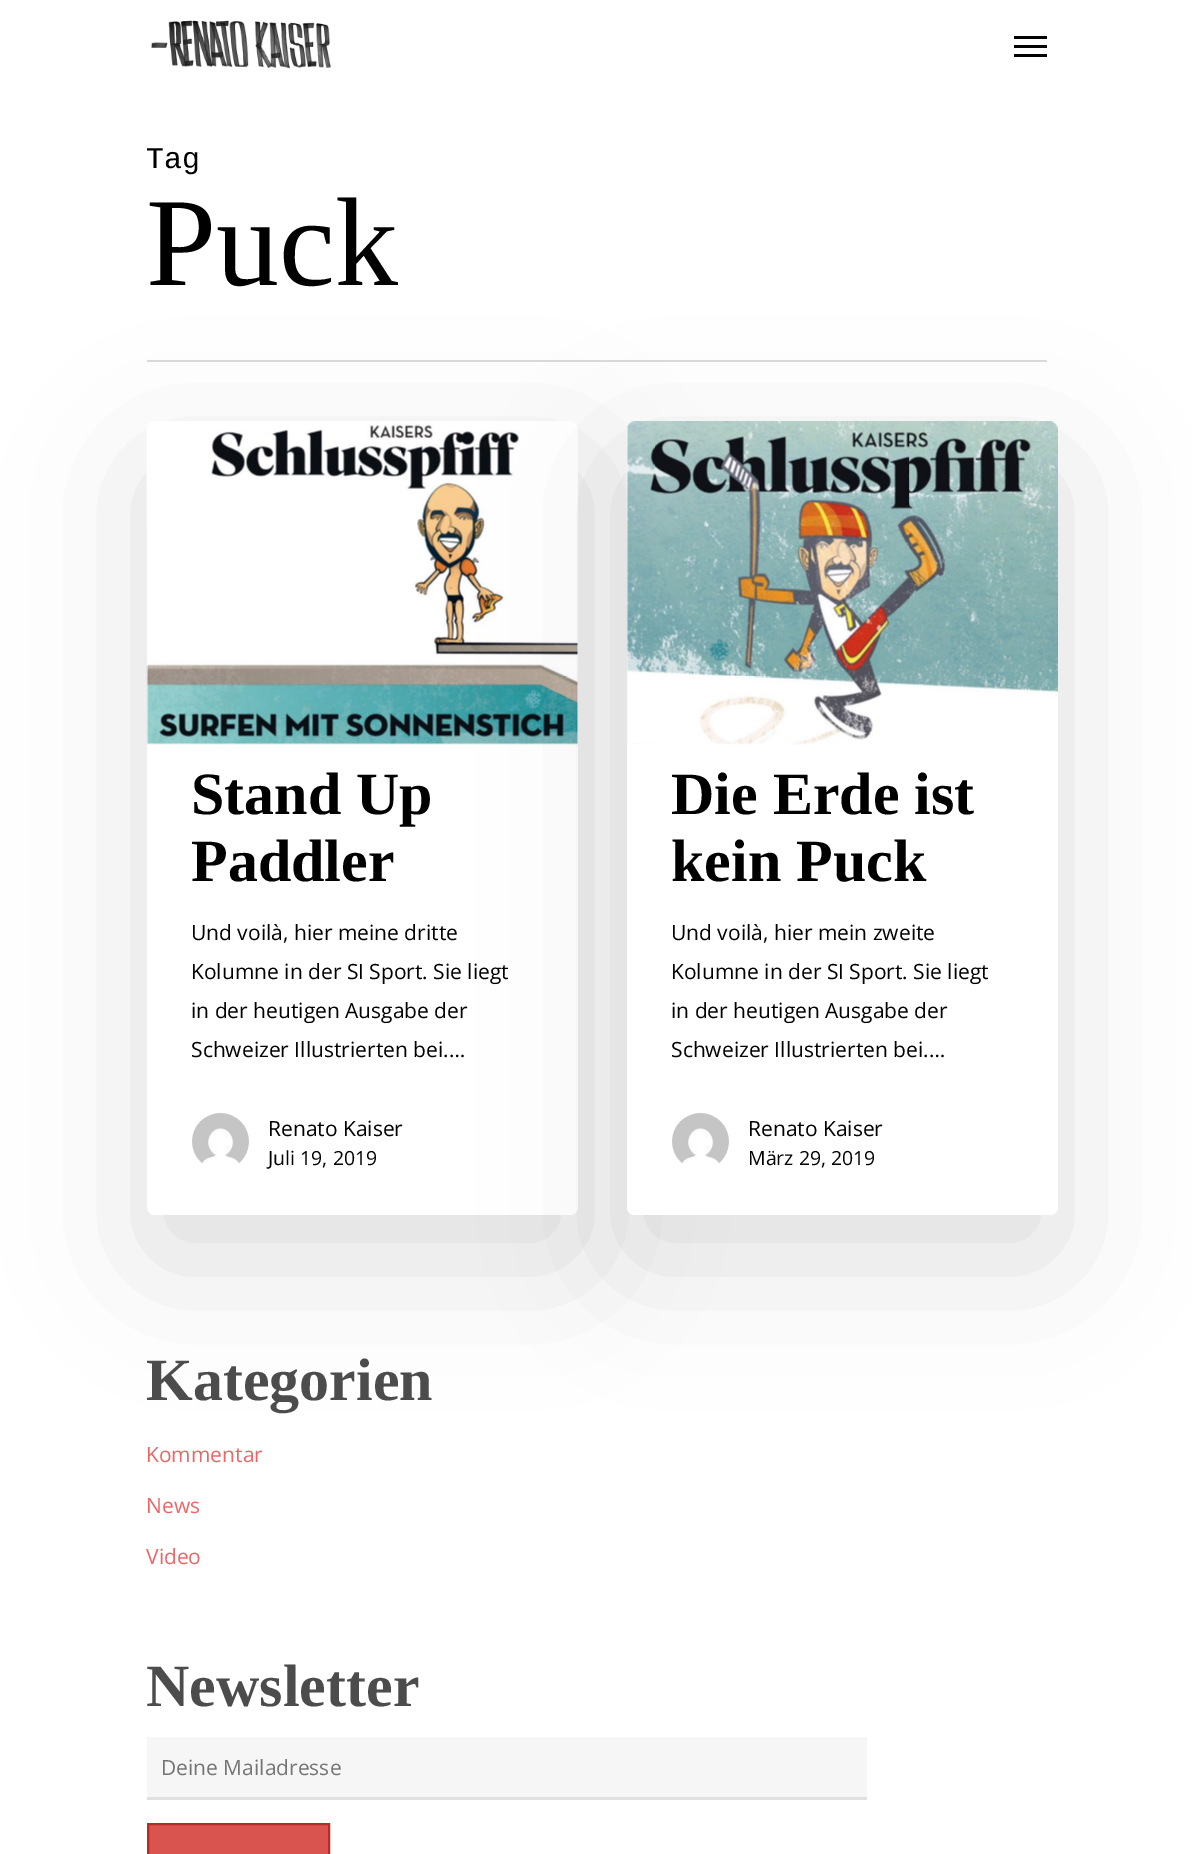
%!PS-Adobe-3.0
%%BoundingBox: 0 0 1192 1854
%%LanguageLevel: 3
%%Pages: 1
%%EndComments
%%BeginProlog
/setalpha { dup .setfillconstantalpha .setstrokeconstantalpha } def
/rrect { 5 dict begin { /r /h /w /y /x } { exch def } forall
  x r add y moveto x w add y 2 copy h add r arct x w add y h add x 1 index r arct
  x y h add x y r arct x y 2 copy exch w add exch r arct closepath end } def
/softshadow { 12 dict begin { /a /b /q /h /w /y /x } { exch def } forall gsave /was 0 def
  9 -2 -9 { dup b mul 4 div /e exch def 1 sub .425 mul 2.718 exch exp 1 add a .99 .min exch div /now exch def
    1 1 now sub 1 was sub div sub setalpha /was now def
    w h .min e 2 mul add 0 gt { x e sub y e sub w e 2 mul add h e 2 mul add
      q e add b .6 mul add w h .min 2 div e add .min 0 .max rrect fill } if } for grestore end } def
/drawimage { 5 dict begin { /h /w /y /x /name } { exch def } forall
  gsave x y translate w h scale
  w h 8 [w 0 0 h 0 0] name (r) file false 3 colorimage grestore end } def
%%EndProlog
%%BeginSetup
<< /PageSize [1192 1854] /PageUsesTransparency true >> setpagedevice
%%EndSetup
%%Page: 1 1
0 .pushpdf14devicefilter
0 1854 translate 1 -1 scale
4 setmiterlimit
1 setgray
0 0 1192 1854 rectfill
(images/1.raw) 151 20 181 49 drawimage
0.008 setgray
1014 36 33 3 rectfill
1014 54 33 3 rectfill
1014 45 33 3 rectfill
0 setgray
147 467 431 793 8 67.5 0.14 softshadow
1 setgray
newpath 147 744 moveto 578 744 lineto 578 1207 lineto 578 1211.5 574.5 1215 570 1215 curveto 155 1215 lineto 150.5 1215 147 1211.5 147 1207 curveto closepath fill
(images/2.raw) 146 421 432 324 drawimage
0 setgray
627 467 431 793 8 67.5 0.14 softshadow
0.851 setgray
147 360 900 2 rectfill
(images/3.raw) 192 1113 57 51 drawimage
1 setgray
newpath 627 744 moveto 1058 744 lineto 1058 1207 lineto 1058 1211.5 1054.5 1215 1050 1215 curveto 635 1215 lineto 630.5 1215 627 1211.5 627 1207 curveto closepath fill
(images/4.raw) 626 421 432 324 drawimage
(images/5.raw) 672 1113 57 51 drawimage
0.965 setgray
147 1737 720 60 rectfill
0.878 setgray
147 1797 720 3 rectfill
0.851 0.325 0.31 setrgbcolor
newpath 148 1824 moveto 329 1824 lineto 329 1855 lineto 148 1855 lineto closepath gsave fill grestore
0.71 0.169 0.153 setrgbcolor
2 setlinewidth
stroke
/LiberationMono-Regular [30 0 0 -30 0 0] selectfont
0 setgray
146 168 moveto (Tag) show
/LiberationSerif-Regular [126 0 0 -126 0 0] selectfont
146 285 moveto (Puck) show
/LiberationSerif-Bold [60 0 0 -60 0 0] selectfont
191 814 moveto (Stand Up) show
191 881 moveto (Paddler) show
/OpenSans-Regular [21 0 0 -21 0 0] selectfont
191 940 moveto (Und voilà, hier meine dritte) show
191 979 moveto (Kolumne in der SI Sport. Sie liegt) show
191 1018 moveto (in der heutigen Ausgabe der) show
191 1057 moveto (Schweizer Illustrierten bei.…) show
268 1136 moveto (Renato Kaiser) show
/OpenSans-Regular [19.5 0 0 -19.5 0 0] selectfont
268 1165 moveto (Juli 19, 2019) show
/LiberationSerif-Bold [60 0 0 -60 0 0] selectfont
671 814 moveto (Die Erde ist) show
671 881 moveto (kein Puck) show
/OpenSans-Regular [21 0 0 -21 0 0] selectfont
671 940 moveto (Und voilà, hier mein zweite) show
671 979 moveto (Kolumne in der SI Sport. Sie liegt) show
671 1018 moveto (in der heutigen Ausgabe der) show
671 1057 moveto (Schweizer Illustrierten bei.…) show
748 1136 moveto (Renato Kaiser) show
/OpenSans-Regular [19.5 0 0 -19.5 0 0] selectfont
748 1165 moveto (März 29, 2019) show
/LiberationSerif-Bold [60 0 0 -60 0 0] selectfont
0.298 setgray
146 1400 moveto (Kategorien) show
/OpenSans-Regular [21 0 0 -21 0 0] selectfont
0.925 0.4 0.404 setrgbcolor
146 1462 moveto (Kommentar) show
146 1513 moveto (News) show
146 1564 moveto (Video) show
/LiberationSerif-Bold [60 0 0 -60 0 0] selectfont
0.298 setgray
146 1706 moveto (Newsletter) show
/OpenSans-Regular [21 0 0 -21 0 0] selectfont
0.459 setgray
161 1775 moveto (Deine Mailadresse) show
.poppdf14devicefilter showpage
%%EOF
